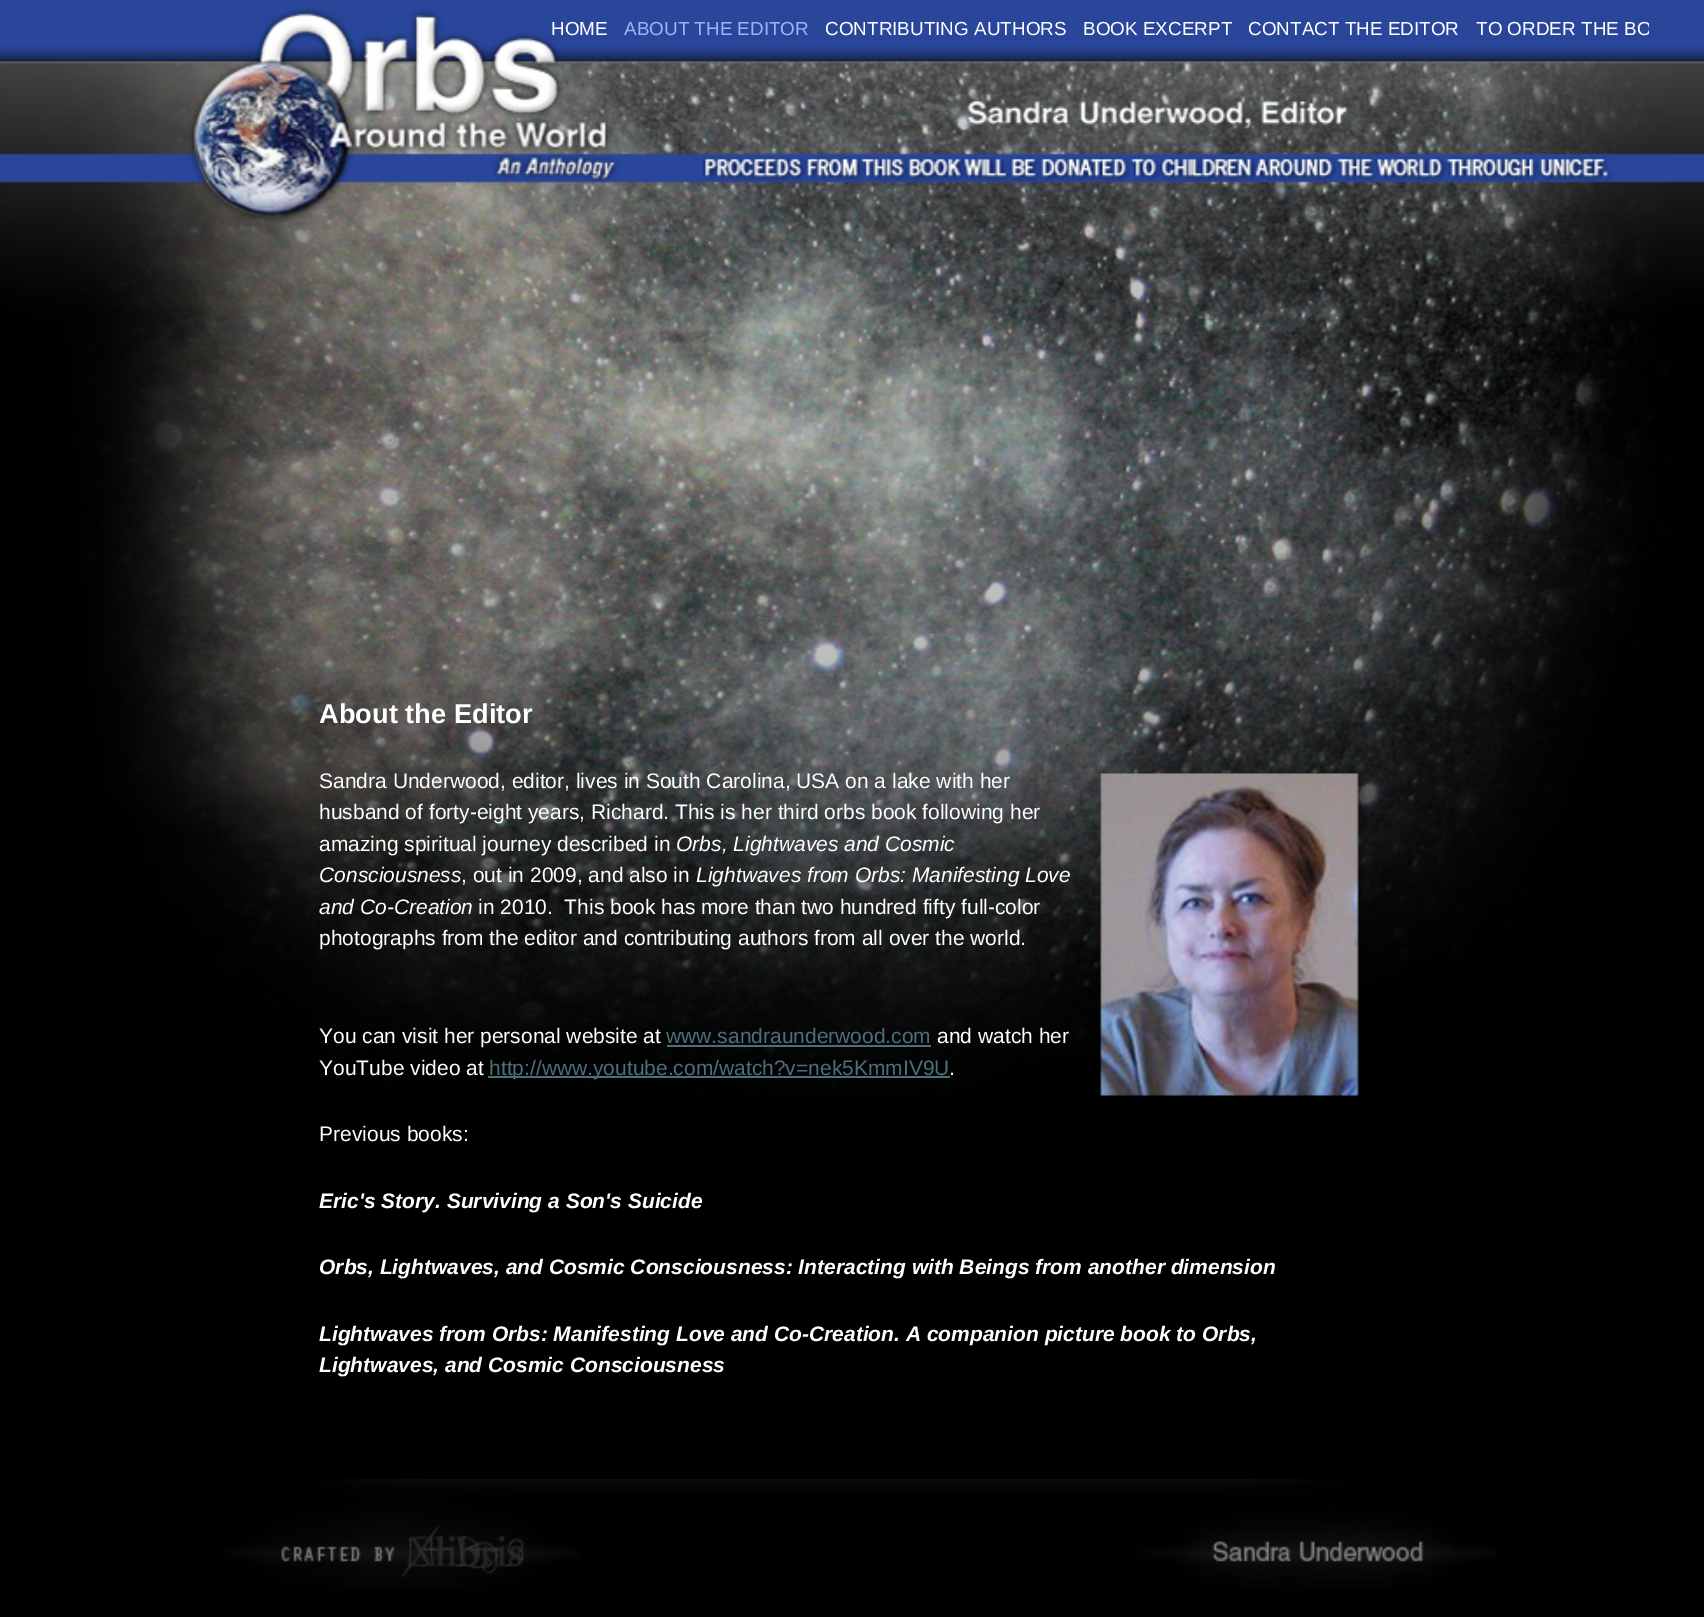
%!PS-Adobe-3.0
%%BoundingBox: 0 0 1704 1617
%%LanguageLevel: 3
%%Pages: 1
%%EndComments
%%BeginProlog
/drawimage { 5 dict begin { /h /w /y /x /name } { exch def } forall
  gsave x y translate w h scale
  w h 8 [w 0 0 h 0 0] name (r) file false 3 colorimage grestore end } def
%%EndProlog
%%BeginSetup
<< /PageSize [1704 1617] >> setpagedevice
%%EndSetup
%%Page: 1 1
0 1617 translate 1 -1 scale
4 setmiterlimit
0 setgray
0 0 1704 1617 rectfill
(images/1.raw) 0 0 1704 8 drawimage
(images/2.raw) 0 8 1704 1088 drawimage
(images/3.raw) 1100 773 266 323 drawimage
0.298 0.439 0.478 setrgbcolor
667 1045 264 2 rectfill
488 1076 462 2 rectfill
(images/4.raw) 225 1479 1272 111 drawimage
/LiberationSans-Regular [18.9 0 0 -18.9 0 0] selectfont
1 setgray
551 35 moveto (HOME) show
0.612 0.702 0.973 setrgbcolor
624 35 moveto (ABOUT THE EDITOR) show
1 setgray
825 35 moveto (CONTRIBUTING AUTHORS) show
1083 35 moveto (BOOK EXCERPT) show
1248 35 moveto (CONTACT THE EDITOR) show
gsave
56 0 1593 68 rectclip
1476 35 moveto (TO ORDER THE BO) show
grestore
/LiberationSans-Bold [27.25 0 0 -27.25 0 0] selectfont
319 723 moveto (About the Editor) show
/LiberationSans-Regular [21 0 0 -21 0 0] selectfont
319 788 moveto (Sandra Underwood, editor, lives in South Carolina, USA on a lake with her) show
319 819 moveto (husband of forty-eight years, Richard. This is her third orbs book following her) show
319 851 moveto (amazing spiritual journey described in) show
/LiberationSans-Italic [21 0 0 -21 0 0] selectfont
676 851 moveto (Orbs, Lightwaves and Cosmic) show
319 882 moveto (Consciousness) show
/LiberationSans-Regular [21 0 0 -21 0 0] selectfont
461 882 moveto (, out in 2009, and also in) show
/LiberationSans-Italic [21 0 0 -21 0 0] selectfont
696 882 moveto (Lightwaves from Orbs: Manifesting Love) show
319 914 moveto (and Co-Creation) show
/LiberationSans-Regular [21 0 0 -21 0 0] selectfont
478 914 moveto (in 2010.  This book has more than two hundred fifty full-color) show
319 945 moveto (photographs from the editor and contributing authors from all over the world.) show
319 1043 moveto (You can visit her personal website at) show
0.298 0.439 0.478 setrgbcolor
666 1043 moveto (www.sandraunderwood.com) show
1 setgray
937 1043 moveto (and watch her) show
319 1075 moveto (YouTube video at) show
0.298 0.439 0.478 setrgbcolor
489 1075 moveto (http://www.youtube.com/watch?v=nek5KmmIV9U) show
1 setgray
949 1075 moveto (.) show
319 1141 moveto (Previous books:) show
/LiberationSans-BoldItalic [21 0 0 -21 0 0] selectfont
319 1208 moveto (Eric's Story. Surviving a Son's Suicide) show
319 1274 moveto (Orbs, Lightwaves, and Cosmic Consciousness: Interacting with Beings from another dimension) show
319 1341 moveto (Lightwaves from Orbs: Manifesting Love and Co-Creation. A companion picture book to Orbs,) show
319 1372 moveto (Lightwaves, and Cosmic Consciousness) show
showpage
%%EOF
